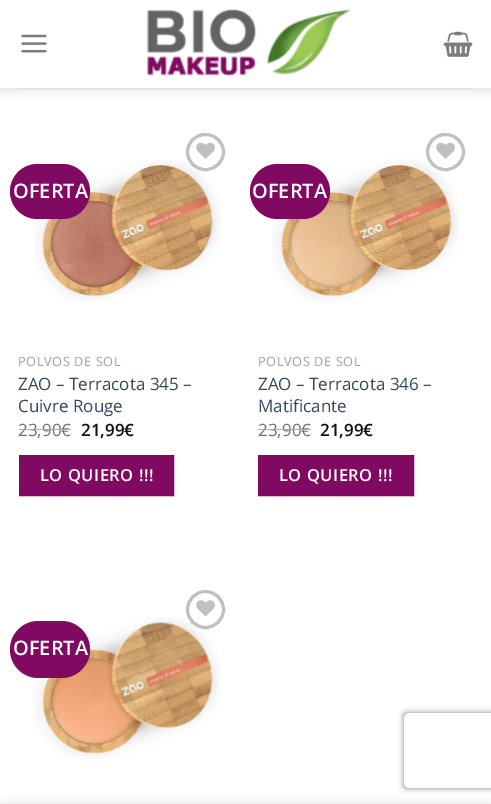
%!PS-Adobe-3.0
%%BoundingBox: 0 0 491 804
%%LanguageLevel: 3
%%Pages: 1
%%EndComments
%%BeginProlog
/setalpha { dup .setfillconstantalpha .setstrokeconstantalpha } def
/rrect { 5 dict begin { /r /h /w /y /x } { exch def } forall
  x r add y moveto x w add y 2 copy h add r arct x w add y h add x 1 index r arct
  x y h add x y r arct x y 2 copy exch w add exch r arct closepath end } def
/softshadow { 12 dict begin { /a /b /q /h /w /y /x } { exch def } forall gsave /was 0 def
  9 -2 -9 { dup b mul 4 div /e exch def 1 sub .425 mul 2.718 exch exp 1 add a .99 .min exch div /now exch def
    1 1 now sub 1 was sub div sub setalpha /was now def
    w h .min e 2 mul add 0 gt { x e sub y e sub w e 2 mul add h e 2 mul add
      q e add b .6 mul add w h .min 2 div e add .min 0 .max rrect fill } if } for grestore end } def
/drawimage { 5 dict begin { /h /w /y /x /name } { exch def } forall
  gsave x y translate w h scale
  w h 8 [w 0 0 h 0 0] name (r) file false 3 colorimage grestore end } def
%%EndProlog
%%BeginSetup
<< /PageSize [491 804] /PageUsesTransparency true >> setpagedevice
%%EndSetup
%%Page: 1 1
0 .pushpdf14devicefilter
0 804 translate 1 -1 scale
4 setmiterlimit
1 setgray
0 0 491 804 rectfill
0 setgray
1 1 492 88 0 6 0.15 softshadow
1 setgray
0 0 491 88 rectfill
(images/1.raw) 21 34 26 19 drawimage
(images/2.raw) 147 8 204 68 drawimage
(images/3.raw) 443 31 30 26 drawimage
0.875 setgray
19 88 454 1 rectfill
(images/5.raw) 35 160 186 142 drawimage
0.502 0.039 0.38 setrgbcolor
10 164 80 55 27.5 rrect fill
0.753 setgray
3 setlinewidth
187.5 134.5 36 35 17.5 rrect stroke
(images/4.raw) 196 142 19 17 drawimage
0.502 0.039 0.38 setrgbcolor
newpath 19.5 455.5 moveto 173.5 455.5 lineto 173.5 495.5 lineto 19.5 495.5 lineto closepath gsave fill grestore
0.478 0.039 0.361 setrgbcolor
1 setlinewidth
stroke
(images/6.raw) 272 159 187 143 drawimage
0.502 0.039 0.38 setrgbcolor
250 164 80 55 27.5 rrect fill
0.753 setgray
3 setlinewidth
427.5 134.5 36 35 17.5 rrect stroke
(images/4.raw) 436 142 19 17 drawimage
0.502 0.039 0.38 setrgbcolor
newpath 258.5 455.5 moveto 413.5 455.5 lineto 413.5 495.5 lineto 258.5 495.5 lineto closepath gsave fill grestore
0.478 0.039 0.361 setrgbcolor
1 setlinewidth
stroke
(images/8.raw) 33 617 187 142 drawimage
0.753 setgray
3 setlinewidth
newpath 205.5 609.5 18 0 360 arc closepath stroke
(images/7.raw) 196 600 19 17 drawimage
0.502 0.039 0.38 setrgbcolor
10 621 80 57 28.5 rrect fill
gsave
newpath 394 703 moveto 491 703 lineto 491 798 lineto 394 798 lineto closepath 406.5 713 moveto 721.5 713 lineto 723 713 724 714 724 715.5 curveto 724 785.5 lineto 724 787 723 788 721.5 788 curveto 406.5 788 lineto 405 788 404 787 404 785.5 curveto 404 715.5 lineto 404 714 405 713 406.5 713 curveto closepath eoclip newpath
0.502 setgray
404 713 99 75 2.5 3 1 softshadow
grestore
0 setgray
0 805 491 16 0 5.5 0.14 softshadow
/OpenSans-SemiBold [20 0 0 -20 0 0] selectfont
1 setgray
13 198 moveto (OFERTA) show
/OpenSans-Regular [12.75 0 0 -12.75 0 0] selectfont
0.627 setgray
18 366 moveto 0.6 0 (POLVOS DE SOL) ashow
/OpenSans-Regular [17 0 0 -17 0 0] selectfont
0.2 0.282 0.384 setrgbcolor
18 390 moveto (ZAO – Terracota 345 –) show
18 412 moveto (Cuivre Rouge) show
0.439 setgray
18 436 moveto (23,90€) show
0.678 setgray
19 429 52 1 rectfill
/OpenSans-SemiBold [17 0 0 -17 0 0] selectfont
0.067 setgray
81 436 moveto (21,99€) show
/OpenSans-SemiBold [16.5 0 0 -16.5 0 0] selectfont
1 setgray
40 481 moveto 0.5 0 (LO QUIERO !!!) ashow
/OpenSans-SemiBold [20 0 0 -20 0 0] selectfont
252 198 moveto (OFERTA) show
/OpenSans-Regular [12.75 0 0 -12.75 0 0] selectfont
0.627 setgray
258 366 moveto 0.6 0 (POLVOS DE SOL) ashow
/OpenSans-Regular [17 0 0 -17 0 0] selectfont
0.2 0.282 0.384 setrgbcolor
258 390 moveto (ZAO – Terracota 346 –) show
258 412 moveto (Matificante) show
0.439 setgray
258 436 moveto (23,90€) show
0.678 setgray
258 429 53 1 rectfill
/OpenSans-SemiBold [17 0 0 -17 0 0] selectfont
0.067 setgray
320 436 moveto (21,99€) show
/OpenSans-SemiBold [16.5 0 0 -16.5 0 0] selectfont
1 setgray
279 481 moveto 0.5 0 (LO QUIERO !!!) ashow
/OpenSans-SemiBold [20 0 0 -20 0 0] selectfont
13 655 moveto (OFERTA) show
.poppdf14devicefilter showpage
%%EOF
